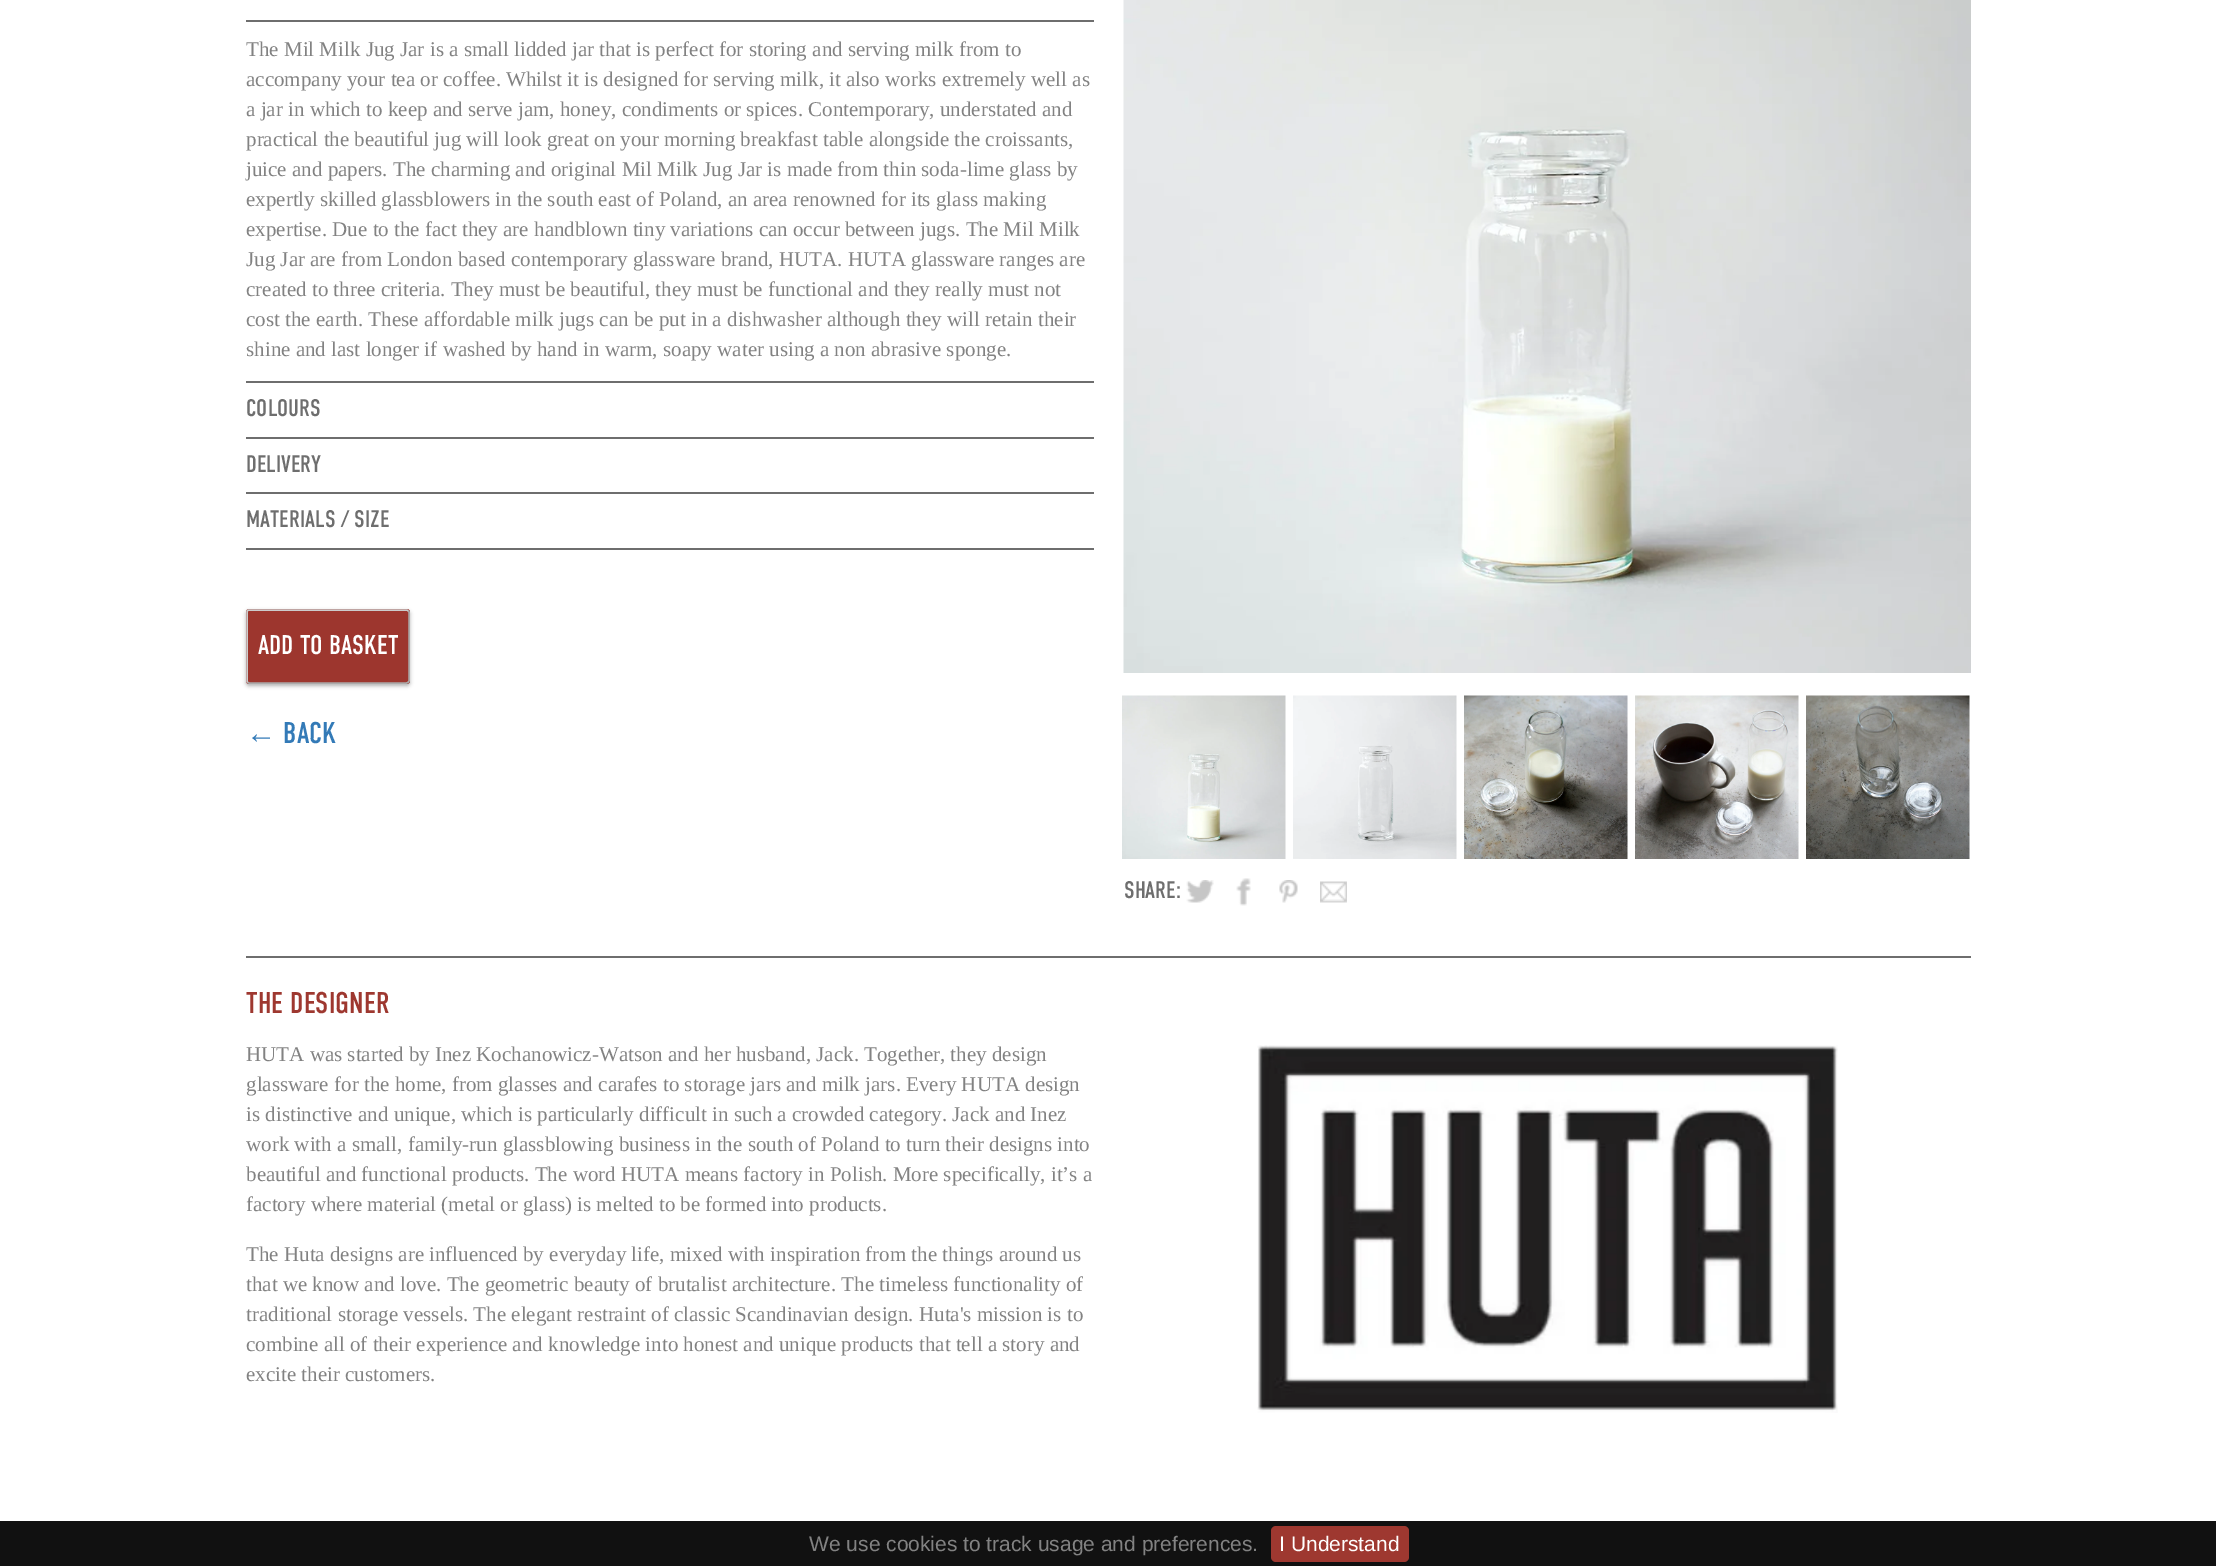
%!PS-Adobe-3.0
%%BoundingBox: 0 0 2216 1566
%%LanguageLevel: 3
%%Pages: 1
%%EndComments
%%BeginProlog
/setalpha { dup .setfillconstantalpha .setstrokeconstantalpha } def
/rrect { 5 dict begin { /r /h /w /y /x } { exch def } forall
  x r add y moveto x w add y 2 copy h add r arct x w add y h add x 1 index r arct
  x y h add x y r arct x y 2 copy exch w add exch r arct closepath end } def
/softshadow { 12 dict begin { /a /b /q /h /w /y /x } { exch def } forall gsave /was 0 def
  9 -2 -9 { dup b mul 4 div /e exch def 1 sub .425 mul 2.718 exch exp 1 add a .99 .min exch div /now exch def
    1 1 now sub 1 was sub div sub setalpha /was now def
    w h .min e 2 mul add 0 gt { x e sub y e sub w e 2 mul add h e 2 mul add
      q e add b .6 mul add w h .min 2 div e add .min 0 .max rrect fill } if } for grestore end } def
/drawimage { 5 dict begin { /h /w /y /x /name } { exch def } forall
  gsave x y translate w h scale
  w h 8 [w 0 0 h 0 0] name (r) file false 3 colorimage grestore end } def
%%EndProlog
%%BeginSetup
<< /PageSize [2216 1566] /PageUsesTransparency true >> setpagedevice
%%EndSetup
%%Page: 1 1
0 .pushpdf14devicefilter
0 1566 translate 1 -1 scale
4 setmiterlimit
1 setgray
0 0 2216 1566 rectfill
0.431 setgray
246 956 1725 2 rectfill
246 20 848 2 rectfill
246 381 848 2 rectfill
246 437 848 2 rectfill
246 492 848 2 rectfill
246 548 848 2 rectfill
0 setgray
246 611 164 75 3 2 0.3 softshadow
0.616 0.212 0.18 setrgbcolor
246 609 164 75 3 rrect fill
0.667 setgray
1.5 setlinewidth
newpath 408 610.5 moveto 409 612 lineto 409 681 lineto 408 682.5 lineto 406.5 683 lineto 249 683 lineto 247.5 682.5 lineto stroke
0.8 setgray
newpath 247.5 682.5 moveto 247 681 lineto 247 612 lineto 247.5 610.5 lineto 249 610 lineto 406.5 610 lineto 408 610.5 lineto stroke
(images/1.raw) 1123 0 848 673 drawimage
(images/2.raw) 1122 695 164 164 drawimage
(images/3.raw) 1293 695 164 164 drawimage
(images/4.raw) 1464 695 164 164 drawimage
(images/5.raw) 1635 695 164 164 drawimage
(images/6.raw) 1806 695 164 164 drawimage
(images/7.raw) 1186 880 28 23 drawimage
(images/8.raw) 1236 878 15 28 drawimage
(images/9.raw) 1279 880 19 23 drawimage
(images/10.raw) 1320 881 27 22 drawimage
(images/11.raw) 1257 1045 581 368 drawimage
0.067 setgray
0 1521 2216 45 rectfill
0.62 0.22 0.188 setrgbcolor
1271 1526 138 36 5 rrect fill
/LiberationSerif-Regular [21 0 0 -21 0 0] selectfont
0.51 setgray
246 56 moveto (The Mil Milk Jug Jar is a small lidded jar that is perfect for storing and serving milk from to) show
246 86 moveto (accompany your tea or coffee. Whilst it is designed for serving milk, it also works extremely well as) show
246 116 moveto (a jar in which to keep and serve jam, honey, condiments or spices. Contemporary, understated and) show
246 146 moveto (practical the beautiful jug will look great on your morning breakfast table alongside the croissants,) show
246 176 moveto (juice and papers. The charming and original Mil Milk Jug Jar is made from thin soda-lime glass by) show
246 206 moveto (expertly skilled glassblowers in the south east of Poland, an area renowned for its glass making) show
246 236 moveto (expertise. Due to the fact they are handblown tiny variations can occur between jugs. The Mil Milk) show
246 266 moveto (Jug Jar are from London based contemporary glassware brand, HUTA. HUTA glassware ranges are) show
246 296 moveto (created to three criteria. They must be beautiful, they must be functional and they really must not) show
246 326 moveto (cost the earth. These affordable milk jugs can be put in a dishwasher although they will retain their) show
246 356 moveto (shine and last longer if washed by hand in warm, soapy water using a non abrasive sponge.) show
/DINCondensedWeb-Regular [24 0 0 -24 0 0] selectfont
0.431 setgray
246 416 moveto (COLOURS) show
246 472 moveto (DELIVERY) show
246 527 moveto (MATERIALS / SIZE) show
/DINCondensedWeb-Regular [27 0 0 -27 0 0] selectfont
1 setgray
258 654 moveto (ADD TO BASKET) show
/LiberationSans-Regular [30 0 0 -30 0 0] selectfont
0.2 0.478 0.718 setrgbcolor
246 743 moveto (←) show
/DINCondensedWeb-Regular [30 0 0 -30 0 0] selectfont
283 743 moveto (BACK) show
/DINCondensedWeb-Regular [24 0 0 -24 0 0] selectfont
0.431 setgray
1124 898 moveto (SHARE:) show
/DINCondensedWeb-Regular [30 0 0 -30 0 0] selectfont
0.62 0.22 0.188 setrgbcolor
246 1013 moveto (THE DESIGNER) show
/LiberationSerif-Regular [21 0 0 -21 0 0] selectfont
0.51 setgray
246 1061 moveto (HUTA was started by Inez Kochanowicz-Watson and her husband, Jack. Together, they design) show
246 1091 moveto (glassware for the home, from glasses and carafes to storage jars and milk jars. Every HUTA design) show
246 1121 moveto (is distinctive and unique, which is particularly difficult in such a crowded category. Jack and Inez) show
246 1151 moveto (work with a small, family-run glassblowing business in the south of Poland to turn their designs into) show
246 1181 moveto (beautiful and functional products. The word HUTA means factory in Polish. More specifically, it’s a) show
246 1211 moveto (factory where material \(metal or glass\) is melted to be formed into products.) show
246 1261 moveto (The Huta designs are influenced by everyday life, mixed with inspiration from the things around us) show
246 1291 moveto (that we know and love. The geometric beauty of brutalist architecture. The timeless functionality of) show
246 1321 moveto (traditional storage vessels. The elegant restraint of classic Scandinavian design. Huta's mission is to) show
246 1351 moveto (combine all of their experience and knowledge into honest and unique products that tell a story and) show
246 1381 moveto (excite their customers.) show
/LiberationSans-Regular [21 0 0 -21 0 0] selectfont
809 1551 moveto (We use cookies to track usage and preferences.) show
1 setgray
1279 1551 moveto (I Understand) show
.poppdf14devicefilter showpage
%%EOF
